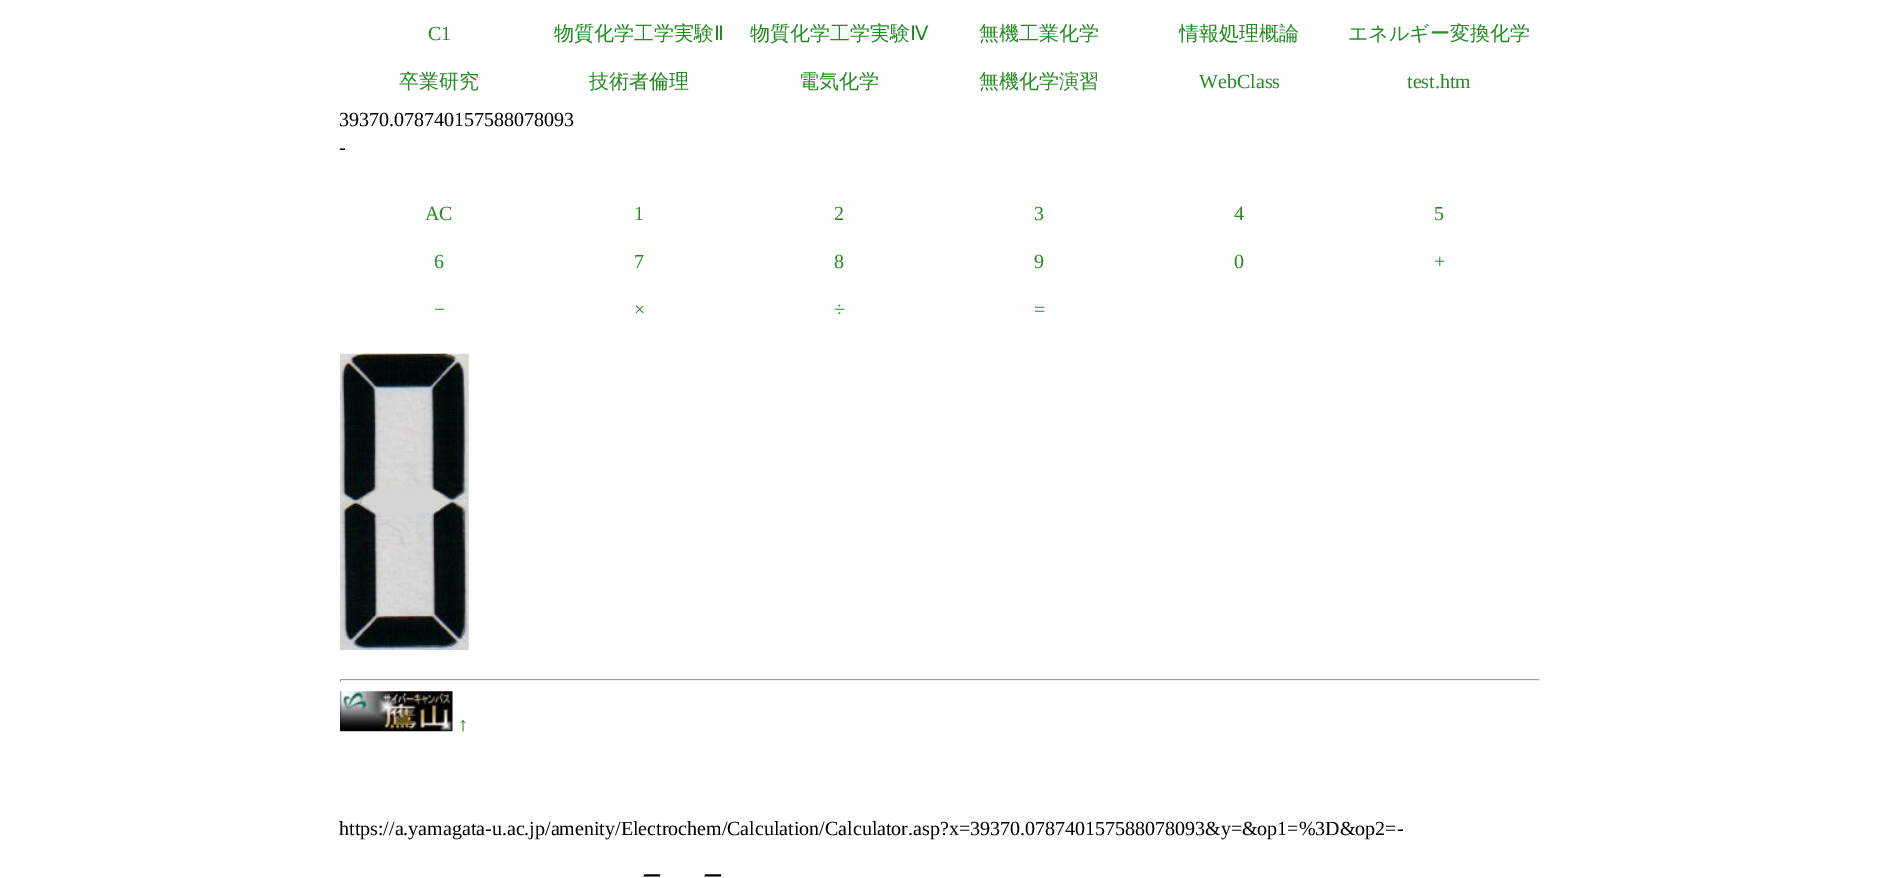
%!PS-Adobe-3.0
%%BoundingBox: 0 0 1878 878
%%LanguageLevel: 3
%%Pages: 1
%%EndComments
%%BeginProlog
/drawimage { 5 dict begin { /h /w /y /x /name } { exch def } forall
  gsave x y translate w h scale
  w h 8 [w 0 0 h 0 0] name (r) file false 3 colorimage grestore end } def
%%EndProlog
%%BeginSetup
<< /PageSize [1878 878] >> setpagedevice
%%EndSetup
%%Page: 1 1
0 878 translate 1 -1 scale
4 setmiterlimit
1 setgray
0 0 1878 878 rectfill
(images/1.raw) 340 353 129 297 drawimage
0.624 setgray
340 679 1200 1 rectfill
0.933 setgray
1539 679 1 3 rectfill
340 680 1200 1 rectfill
0.624 setgray
340 679 1 3 rectfill
(images/2.raw) 340 691 113 41 drawimage
/LiberationSerif-Regular [20 0 0 -20 0 0] selectfont
0.133 0.545 0.133 setrgbcolor
428 40 moveto (C1) show
/WenQuanYiZenHei-Medium [20 0 0 -20 0 0] selectfont
554 40 moveto (物質化学工学実験) show
/DejaVuSans-Regular [20 0 0 -20 0 0] selectfont
714 40 moveto (Ⅱ) show
/WenQuanYiZenHei-Medium [20 0 0 -20 0 0] selectfont
750 40 moveto (物質化学工学実験) show
/DejaVuSans-Regular [20 0 0 -20 0 0] selectfont
910 40 moveto (Ⅳ) show
/WenQuanYiZenHei-Medium [20 0 0 -20 0 0] selectfont
979 40 moveto (無機工業化学) show
1179 40 moveto (情報処理概論) show
1348 40 moveto (エネルギー変換化学) show
399 88 moveto (卒業研究) show
589 88 moveto (技術者倫理) show
799 88 moveto (電気化学) show
979 88 moveto (無機化学演習) show
/LiberationSerif-Regular [20 0 0 -20 0 0] selectfont
1199 88 moveto (WebClass) show
1407 88 moveto (test.htm) show
0 setgray
339 126 moveto (39370.078740157588078093) show
339 154 moveto (-) show
0.133 0.545 0.133 setrgbcolor
425 220 moveto (AC) show
634 220 moveto (1) show
834 220 moveto (2) show
1034 220 moveto (3) show
1234 220 moveto (4) show
1434 220 moveto (5) show
434 268 moveto (6) show
634 268 moveto (7) show
834 268 moveto (8) show
1034 268 moveto (9) show
1234 268 moveto (0) show
1434 268 moveto (+) show
434 316 moveto (−) show
634 316 moveto (×) show
834 316 moveto (÷) show
1034 316 moveto (=) show
458 731 moveto (↑) show
0 setgray
339 835 moveto (https://a.yamagata-u.ac.jp/amenity/Electrochem/Calculation/Calculator.asp?x=39370.078740157588078093&y=&op1=%3D&op2=-) show
/WenQuanYiZenHei-MediumItalic [20 0 0 -20 0 0] selectfont
640 883 moveto (ー) show
701 883 moveto (ー) show
showpage
%%EOF
